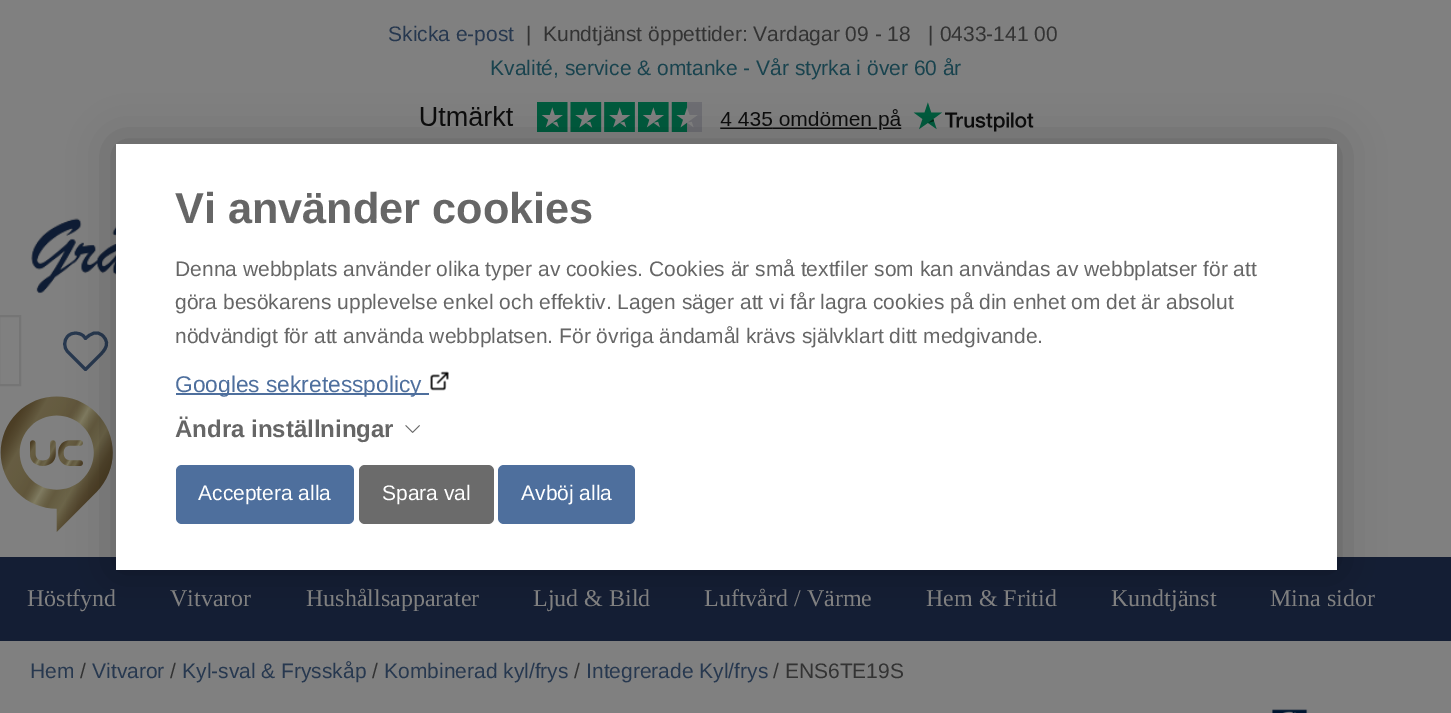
%!PS-Adobe-3.0
%%BoundingBox: 0 0 1451 713
%%LanguageLevel: 3
%%Pages: 1
%%EndComments
%%BeginProlog
/setalpha { dup .setfillconstantalpha .setstrokeconstantalpha } def
/rrect { 5 dict begin { /r /h /w /y /x } { exch def } forall
  x r add y moveto x w add y 2 copy h add r arct x w add y h add x 1 index r arct
  x y h add x y r arct x y 2 copy exch w add exch r arct closepath end } def
/softshadow { 12 dict begin { /a /b /q /h /w /y /x } { exch def } forall gsave /was 0 def
  9 -2 -9 { dup b mul 4 div /e exch def 1 sub .425 mul 2.718 exch exp 1 add a .99 .min exch div /now exch def
    1 1 now sub 1 was sub div sub setalpha /was now def
    w h .min e 2 mul add 0 gt { x e sub y e sub w e 2 mul add h e 2 mul add
      q e add b .6 mul add w h .min 2 div e add .min 0 .max rrect fill } if } for grestore end } def
/drawimage { 5 dict begin { /h /w /y /x /name } { exch def } forall
  gsave x y translate w h scale
  w h 8 [w 0 0 h 0 0] name (r) file false 3 colorimage grestore end } def
%%EndProlog
%%BeginSetup
<< /PageSize [1451 713] /PageUsesTransparency true >> setpagedevice
%%EndSetup
%%Page: 1 1
0 .pushpdf14devicefilter
0 713 translate 1 -1 scale
4 setmiterlimit
0.502 setgray
0 0 1451 713 rectfill
(images/1.raw) 420 102 614 30 drawimage
(images/2.raw) 31 218 85 76 drawimage
0.459 setgray
2 setlinewidth
-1 316 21 69 rectstroke
0.153 0.22 0.31 setrgbcolor
3 setlinewidth
1 setlinecap
1 setlinejoin
newpath 103 336 moveto 97 330 90.5 333.5 85.5 338.5 curveto 83.5 336 lineto 79 332 72 332 68 336 curveto 63.5 340.5 63.5 347.5 68 352 curveto 85.5 369.5 lineto 96 359 lineto 102 353 112 345 103 336 curveto closepath stroke
(images/3.raw) 0 396 113 136 drawimage
0.078 0.118 0.204 setrgbcolor
0 557 1451 84 rectfill
0 setgray
116 144 1221 426 0 22.5 0.25 softshadow
1 setgray
116 144 1221 426 rectfill
0.306 0.435 0.616 setrgbcolor
176 393 253 2 rectfill
(images/4.raw) 430 371 19 20 drawimage
(images/5.raw) 405 425 15 8 drawimage
176 465 178 59 6 rrect fill
0.42 setgray
359 465 135 59 6 rrect fill
0.306 0.435 0.616 setrgbcolor
498 465 137 59 6 rrect fill
(images/6.raw) 1272 709 36 4 drawimage
/LiberationSans-Regular [21 0 0 -21 0 0] selectfont
0.153 0.22 0.31 setrgbcolor
388 41 moveto (Skicka e-post) show
0.2 setgray
526 41 moveto (|  Kundtjänst öppettider: Vardagar 09 - 18   | 0433-141 00) show
0.098 0.263 0.306 setrgbcolor
490 75 moveto (Kvalité, service & omtanke - Vår styrka i över 60 år) show
/LiberationSans-Bold [43.25 0 0 -43.25 0 0] selectfont
0.4 setgray
175 223 moveto (Vi använder cookies) show
/LiberationSans-Regular [21 0 0 -21 0 0] selectfont
175 276 moveto (Denna webbplats använder olika typer av cookies. Cookies är små textfiler som kan användas av webbplatser för att) show
175 309 moveto (göra besökarens upplevelse enkel och effektiv. Lagen säger att vi får lagra cookies på din enhet om det är absolut) show
175 343 moveto (nödvändigt för att använda webbplatsen. För övriga ändamål krävs självklart ditt medgivande.) show
/LiberationSans-Regular [22.75 0 0 -22.75 0 0] selectfont
0.306 0.435 0.616 setrgbcolor
175 392 moveto (Googles sekretesspolicy) show
/LiberationSans-Bold [24 0 0 -24 0 0] selectfont
0.4 setgray
175 437 moveto (Ändra inställningar) show
/LiberationSans-Regular [21 0 0 -21 0 0] selectfont
1 setgray
198 500 moveto (Acceptera alla) show
382 500 moveto (Spara val) show
521 500 moveto (Avböj alla) show
/LiberationSerif-Regular [24 0 0 -24 0 0] selectfont
0.502 setgray
27 606 moveto (Höstfynd) show
170 606 moveto (Vitvaror) show
306 606 moveto (Hushållsapparater) show
533 606 moveto (Ljud & Bild) show
704 606 moveto (Luftvård / Värme) show
926 606 moveto (Hem & Fritid) show
1111 606 moveto (Kundtjänst) show
1270 606 moveto (Mina sidor) show
/LiberationSans-Regular [21 0 0 -21 0 0] selectfont
0.153 0.22 0.31 setrgbcolor
30 678 moveto (Hem) show
0.2 setgray
80 678 moveto (/) show
0.153 0.22 0.31 setrgbcolor
92 678 moveto (Vitvaror) show
0.2 setgray
170 678 moveto (/) show
0.153 0.22 0.31 setrgbcolor
182 678 moveto (Kyl-sval & Frysskåp) show
0.2 setgray
372 678 moveto (/) show
0.153 0.22 0.31 setrgbcolor
384 678 moveto (Kombinerad kyl/frys) show
0.2 setgray
574 678 moveto (/) show
0.153 0.22 0.31 setrgbcolor
586 678 moveto (Integrerade Kyl/frys) show
0.2 setgray
773 678 moveto (/ ENS6TE19S) show
.poppdf14devicefilter showpage
%%EOF
